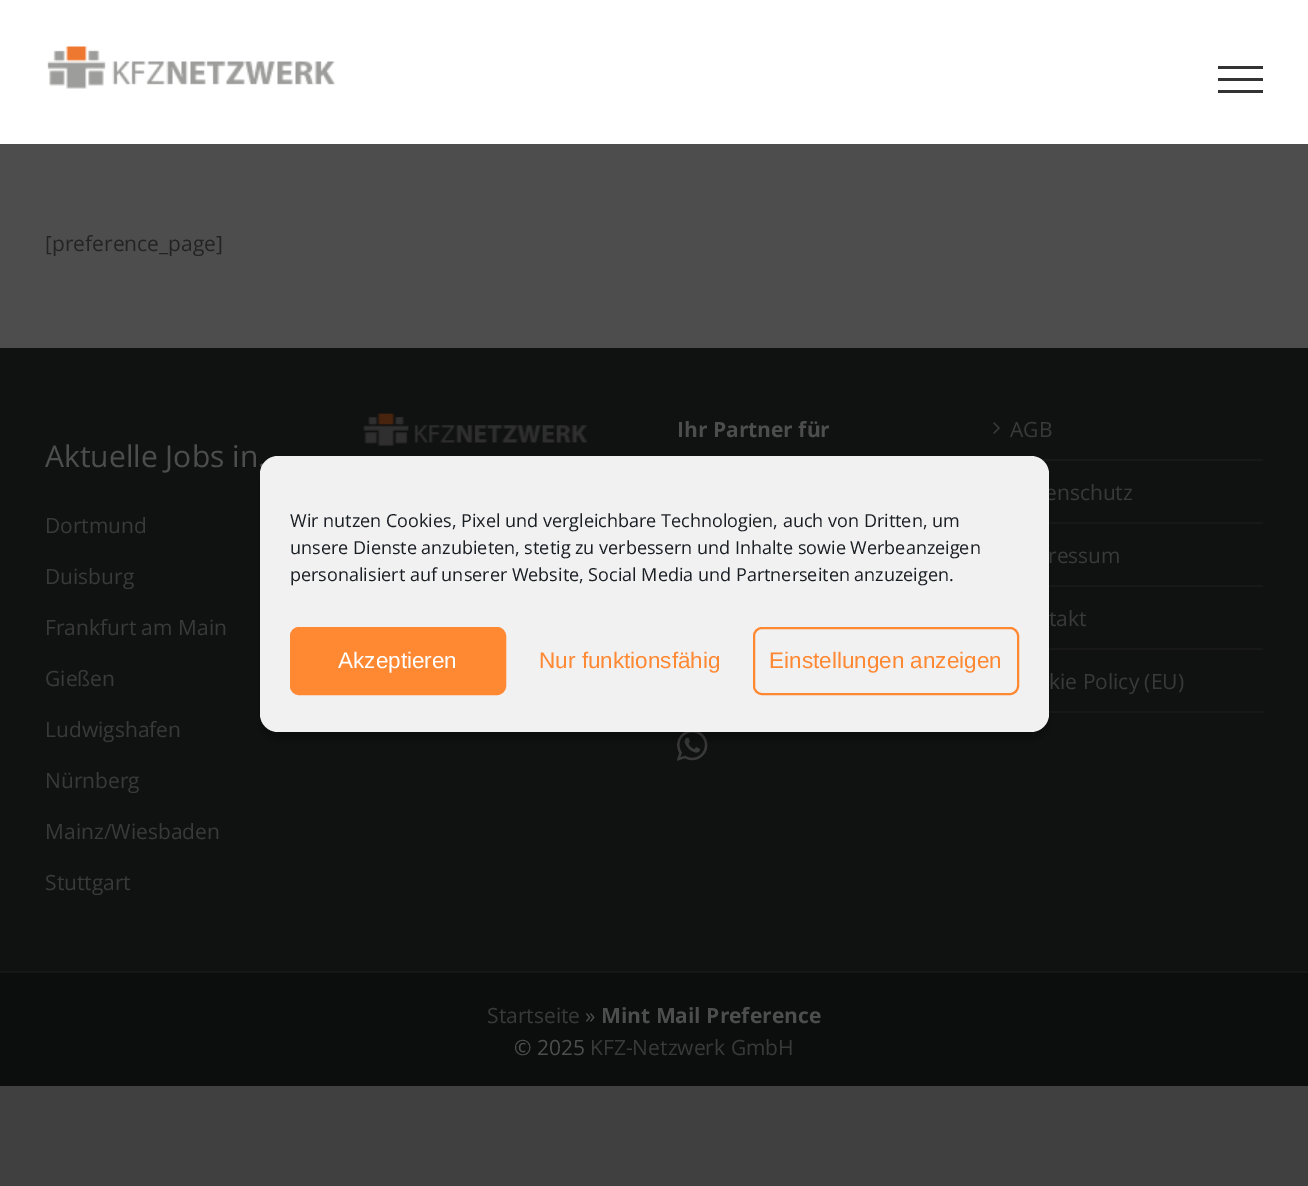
%!PS-Adobe-3.0
%%BoundingBox: 0 0 1308 1186
%%LanguageLevel: 3
%%Pages: 1
%%EndComments
%%BeginProlog
/setalpha { dup .setfillconstantalpha .setstrokeconstantalpha } def
/rrect { 5 dict begin { /r /h /w /y /x } { exch def } forall
  x r add y moveto x w add y 2 copy h add r arct x w add y h add x 1 index r arct
  x y h add x y r arct x y 2 copy exch w add exch r arct closepath end } def
/softshadow { 12 dict begin { /a /b /q /h /w /y /x } { exch def } forall gsave /was 0 def
  9 -2 -9 { dup b mul 4 div /e exch def 1 sub .425 mul 2.718 exch exp 1 add a .99 .min exch div /now exch def
    1 1 now sub 1 was sub div sub setalpha /was now def
    w h .min e 2 mul add 0 gt { x e sub y e sub w e 2 mul add h e 2 mul add
      q e add b .6 mul add w h .min 2 div e add .min 0 .max rrect fill } if } for grestore end } def
/drawimage { 5 dict begin { /h /w /y /x /name } { exch def } forall
  gsave x y translate w h scale
  w h 8 [w 0 0 h 0 0] name (r) file false 3 colorimage grestore end } def
%%EndProlog
%%BeginSetup
<< /PageSize [1308 1186] /PageUsesTransparency true >> setpagedevice
%%EndSetup
%%Page: 1 1
0 .pushpdf14devicefilter
0 1186 translate 1 -1 scale
4 setmiterlimit
0.255 0.251 0.251 setrgbcolor
0 0 1308 1186 rectfill
0.302 setgray
0 144 1308 204 rectfill
1 setgray
0 0 1308 144 rectfill
(images/1.raw) 47 46 288 43 drawimage
0.2 setgray
1218 66 45 3 rectfill
1218 78 45 3 rectfill
1218 90 45 3 rectfill
0.063 0.067 0.067 setrgbcolor
0 348 1308 623 rectfill
(images/2.raw) 363 413 225 33 drawimage
(images/3.raw) 677 732 31 29 drawimage
0.094 0.094 0.098 setrgbcolor
1041 459 222 2 rectfill
(images/4.raw) 993 422 7 12 drawimage
1049 522 214 2 rectfill
1049 585 214 2 rectfill
1049 648 214 2 rectfill
1049 711 214 2 rectfill
0.047 0.051 0.051 setrgbcolor
0 973 1308 113 rectfill
0.09 setgray
0 971 1308 2 rectfill
0 setgray
260 465 789 276 18 4.5 0.23 softshadow
/OpenSans-Regular [21 0 0 -21 0 0] selectfont
0.137 setgray
45 251 moveto ([preference_page]) show
/OpenSans-Regular [30 0 0 -30 0 0] selectfont
0.302 setgray
45 467 moveto (Aktuelle Jobs in.) show
/OpenSans-Regular [21 0 0 -21 0 0] selectfont
0.224 setgray
45 533 moveto (Dortmund) show
45 584 moveto (Duisburg) show
45 635 moveto (Frankfurt am Main) show
45 686 moveto (Gießen) show
45 737 moveto (Ludwigshafen) show
45 788 moveto (Nürnberg) show
45 839 moveto (Mainz/Wiesbaden) show
45 890 moveto (Stuttgart) show
/OpenSans-Bold [21 0 0 -21 0 0] selectfont
0.302 setgray
677 437 moveto (Ihr Partner für) show
/OpenSans-Regular [21 0 0 -21 0 0] selectfont
0.224 setgray
1010 437 moveto (AGB) show
1045 500 moveto (enschutz) show
1048 563 moveto (ressum) show
1049 626 moveto (takt) show
1049 689 moveto (kie Policy \(EU\)) show
487 1023 moveto (Startseite) show
0.302 setgray
585 1023 moveto (») show
/OpenSans-Bold [21 0 0 -21 0 0] selectfont
601 1023 moveto (Mint Mail Preference) show
/OpenSans-Regular [21 0 0 -21 0 0] selectfont
514 1055 moveto (© 2025) show
0.224 setgray
590 1055 moveto (KFZ-Netzwerk GmbH) show
0.945 setgray
260 456 789 276 18 rrect fill
/OpenSans-Regular [18 0 0 -18 0 0] selectfont
0.098 0.118 0.137 setrgbcolor
290 527 moveto (Wir nutzen Cookies, Pixel und vergleichbare Technologien, auch von Dritten, um) show
290 554 moveto (unsere Dienste anzubieten, stetig zu verbessern und Inhalte sowie Werbeanzeigen) show
290 581 moveto (personalisiert auf unserer Website, Social Media und Partnerseiten anzuzeigen.) show
1 0.533 0.2 setrgbcolor
291 628 214 66 8 rrect gsave fill grestore
2 setlinewidth
stroke
/LiberationSans-Regular [22.5 0 0 -22.5 0 0] selectfont
1 setgray
338 668 moveto (Akzeptieren) show
1 0.533 0.2 setrgbcolor
539 668 moveto (Nur funktionsfähig) show
754 628 264 66 8 rrect stroke
769 668 moveto (Einstellungen anzeigen) show
.poppdf14devicefilter showpage
%%EOF
